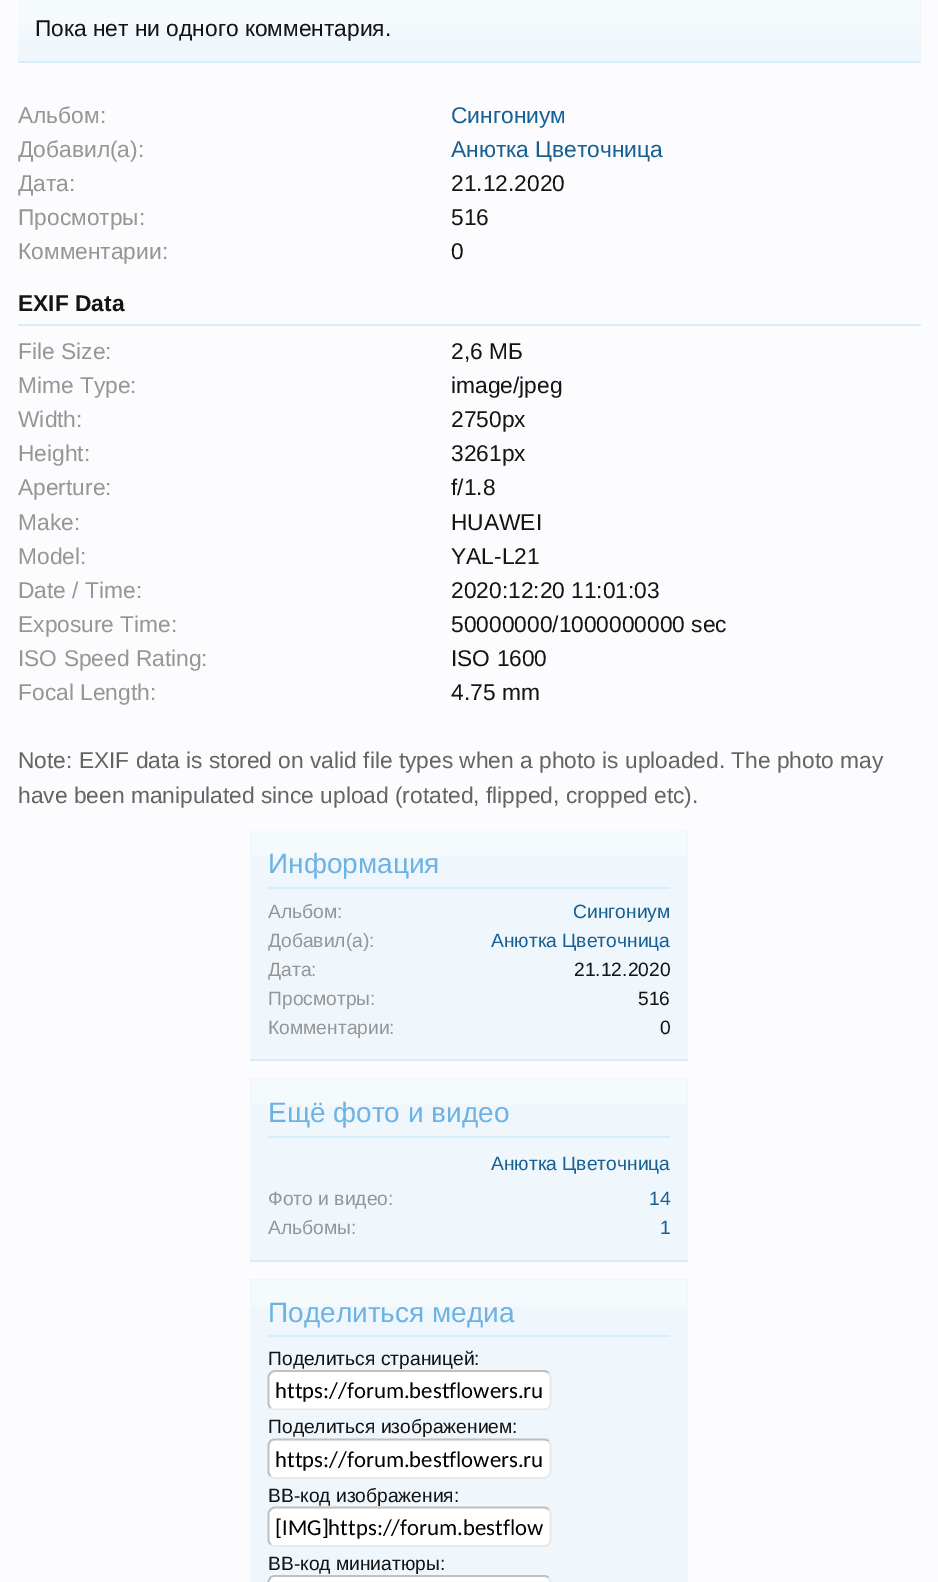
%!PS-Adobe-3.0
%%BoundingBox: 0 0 938 1582
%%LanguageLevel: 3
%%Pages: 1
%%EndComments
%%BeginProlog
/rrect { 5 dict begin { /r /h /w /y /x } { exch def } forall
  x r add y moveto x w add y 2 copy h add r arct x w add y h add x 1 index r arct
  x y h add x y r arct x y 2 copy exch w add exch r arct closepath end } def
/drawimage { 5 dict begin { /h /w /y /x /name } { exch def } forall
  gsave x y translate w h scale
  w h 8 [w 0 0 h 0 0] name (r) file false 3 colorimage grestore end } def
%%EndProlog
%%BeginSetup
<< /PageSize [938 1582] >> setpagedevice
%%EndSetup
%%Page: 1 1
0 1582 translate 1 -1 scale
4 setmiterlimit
0.988 0.988 1 setrgbcolor
0 0 938 1582 rectfill
0.941 0.969 0.988 setrgbcolor
18 0 903 61 rectfill
(images/1.raw) 18 0 902 40 drawimage
0.843 0.929 0.988 setrgbcolor
18 61 903 2 rectfill
18 324 903 2 rectfill
0.941 0.969 0.988 setrgbcolor
250 830 438 229 rectfill
(images/2.raw) 251 830 436 27 drawimage
0.843 0.929 0.988 setrgbcolor
250 1059 438 2 rectfill
268 887 402 2 rectfill
0.941 0.969 0.988 setrgbcolor
250 1078 438 182 rectfill
(images/3.raw) 251 1079 436 26 drawimage
0.843 0.929 0.988 setrgbcolor
250 1260 438 2 rectfill
268 1136 402 2 rectfill
0.941 0.969 0.988 setrgbcolor
250 1279 438 303 rectfill
(images/4.raw) 251 1280 436 27 drawimage
0.843 0.929 0.988 setrgbcolor
268 1335 402 2 rectfill
1 setgray
268 1370 283 41 7 rrect fill
0.914 setgray
1.8 setlinewidth
newpath 548.5 1373 moveto 549.5 1374 550.5 1375.5 550.5 1377 curveto 550.5 1403.5 lineto 550.5 1405 549.5 1406.5 548.5 1408 curveto 547.5 1409 546 1409.5 544 1409.5 curveto 275 1409.5 lineto 273 1409.5 271.5 1409 270.5 1408 curveto stroke
0.753 setgray
newpath 270.5 1408 moveto 269.5 1406.5 268.5 1405 268.5 1403.5 curveto 268.5 1377 lineto 268.5 1375.5 269.5 1374 270.5 1373 curveto 271.5 1372 273 1371 275 1371 curveto 544 1371 lineto 546 1371 547.5 1372 548.5 1373 curveto stroke
1 setgray
268 1439 283 40 7 rrect fill
0.914 setgray
newpath 548.5 1441 moveto 549.5 1442.5 550.5 1444 550.5 1445.5 curveto 550.5 1472 lineto 550.5 1473.5 549.5 1475 548.5 1476 curveto 547.5 1477 546 1478 544 1478 curveto 275 1478 lineto 273 1478 271.5 1477 270.5 1476 curveto stroke
0.753 setgray
newpath 270.5 1476 moveto 269.5 1475 268.5 1473.5 268.5 1472 curveto 268.5 1445.5 lineto 268.5 1444 269.5 1442.5 270.5 1441 curveto 271.5 1440 273 1439.5 275 1439.5 curveto 544 1439.5 lineto 546 1439.5 547.5 1440 548.5 1441 curveto stroke
1 setgray
268 1507 283 40 7 rrect fill
0.914 setgray
newpath 548.5 1509.5 moveto 549.5 1510.5 550.5 1512 550.5 1514 curveto 550.5 1540 lineto 550.5 1541.5 549.5 1543 548.5 1544.5 curveto 547.5 1545.5 546 1546 544 1546 curveto 275 1546 lineto 273 1546 271.5 1545.5 270.5 1544.5 curveto stroke
0.753 setgray
newpath 270.5 1544.5 moveto 269.5 1543 268.5 1541.5 268.5 1540 curveto 268.5 1514 lineto 268.5 1512 269.5 1510.5 270.5 1509.5 curveto 271.5 1508.5 273 1507.5 275 1507.5 curveto 544 1507.5 lineto 546 1507.5 547.5 1508.5 548.5 1509.5 curveto stroke
1 setgray
268 1575 283 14 7 rrect fill
0.914 setgray
newpath 548.5 1577.5 moveto 549.5 1579 550.5 1580.5 550.5 1582 curveto 550.5 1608 lineto 550.5 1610 549.5 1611.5 548.5 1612.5 curveto 547.5 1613.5 546 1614.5 544 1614.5 curveto 275 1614.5 lineto 273 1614.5 271.5 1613.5 270.5 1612.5 curveto stroke
0.753 setgray
newpath 270.5 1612.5 moveto 269.5 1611.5 268.5 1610 268.5 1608 curveto 268.5 1582 lineto 268.5 1580.5 269.5 1579 270.5 1577.5 curveto 271.5 1576.5 273 1576 275 1576 curveto 544 1576 lineto 546 1576 547.5 1576.5 548.5 1577.5 curveto stroke
/LiberationSans-Regular [22.75 0 0 -22.75 0 0] selectfont
0.078 setgray
35 36 moveto (Пока нет ни одного комментария.) show
0.588 setgray
18 123 moveto (Альбом:) show
0.09 0.376 0.576 setrgbcolor
451 123 moveto (Сингониум) show
gsave
18 133 903 33 rectclip
0.588 setgray
18 157 moveto (Добавил\(а\):) show
grestore
451 157 moveto (Анютка Цветочница) show
gsave
18 166 903 35 rectclip
0.588 setgray
18 191 moveto (Дата:) show
grestore
0.078 setgray
451 191 moveto (21.12.2020) show
0.588 setgray
18 225 moveto (Просмотры:) show
0.078 setgray
451 225 moveto (516) show
0.588 setgray
18 259 moveto (Комментарии:) show
0.078 setgray
451 259 moveto (0) show
/LiberationSans-Bold [22.75 0 0 -22.75 0 0] selectfont
18 311 moveto (EXIF Data) show
/LiberationSans-Regular [22.75 0 0 -22.75 0 0] selectfont
0.588 setgray
18 359 moveto (File Size:) show
0.078 setgray
451 359 moveto (2,6 МБ) show
0.588 setgray
18 393 moveto (Mime Type:) show
0.078 setgray
451 393 moveto (image/jpeg) show
0.588 setgray
18 427 moveto (Width:) show
0.078 setgray
451 427 moveto (2750px) show
0.588 setgray
18 461 moveto (Height:) show
0.078 setgray
451 461 moveto (3261px) show
0.588 setgray
18 495 moveto (Aperture:) show
0.078 setgray
451 495 moveto (f/1.8) show
0.588 setgray
18 530 moveto (Make:) show
0.078 setgray
451 530 moveto (HUAWEI) show
0.588 setgray
18 564 moveto (Model:) show
0.078 setgray
451 564 moveto (YAL-L21) show
0.588 setgray
18 598 moveto (Date / Time:) show
0.078 setgray
451 598 moveto (2020:12:20 11:01:03) show
0.588 setgray
18 632 moveto (Exposure Time:) show
0.078 setgray
451 632 moveto (50000000/1000000000 sec) show
0.588 setgray
18 666 moveto (ISO Speed Rating:) show
0.078 setgray
451 666 moveto (ISO 1600) show
0.588 setgray
18 700 moveto (Focal Length:) show
0.078 setgray
451 700 moveto (4.75 mm) show
0.392 setgray
18 768 moveto (Note: EXIF data is stored on valid file types when a photo is uploaded. The photo may) show
18 803 moveto (have been manipulated since upload \(rotated, flipped, cropped etc\).) show
/LiberationSans-Regular [28 0 0 -28 0 0] selectfont
0.424 0.698 0.894 setrgbcolor
268 873 moveto (Информация) show
/LiberationSans-Regular [19.25 0 0 -19.25 0 0] selectfont
0.588 setgray
268 918 moveto (Альбом:) show
0.09 0.376 0.576 setrgbcolor
573 918 moveto (Сингониум) show
gsave
268 926 402 30 rectclip
0.588 setgray
268 947 moveto (Добавил\(а\):) show
grestore
491 947 moveto (Анютка Цветочница) show
gsave
268 956 402 28 rectclip
0.588 setgray
268 976 moveto (Дата:) show
grestore
0.078 setgray
574 976 moveto (21.12.2020) show
0.588 setgray
268 1005 moveto (Просмотры:) show
0.078 setgray
638 1005 moveto (516) show
0.588 setgray
268 1034 moveto (Комментарии:) show
0.078 setgray
660 1034 moveto (0) show
/LiberationSans-Regular [28 0 0 -28 0 0] selectfont
0.424 0.698 0.894 setrgbcolor
268 1122 moveto (Ещё фото и видео) show
/LiberationSans-Regular [19.25 0 0 -19.25 0 0] selectfont
0.09 0.376 0.576 setrgbcolor
491 1170 moveto (Анютка Цветочница) show
0.588 setgray
268 1205 moveto (Фото и видео:) show
0.09 0.376 0.576 setrgbcolor
649 1205 moveto (14) show
0.588 setgray
268 1234 moveto (Альбомы:) show
0.09 0.376 0.576 setrgbcolor
660 1234 moveto (1) show
/LiberationSans-Regular [28 0 0 -28 0 0] selectfont
0.424 0.698 0.894 setrgbcolor
268 1322 moveto (Поделиться медиа) show
/LiberationSans-Regular [19.25 0 0 -19.25 0 0] selectfont
0.078 setgray
268 1365 moveto (Поделиться страницей:) show
/Carlito-Regular [22.75 0 0 -22.75 0 0] selectfont
0 setgray
275 1398 moveto (https://forum.bestflowers.ru) show
/LiberationSans-Regular [19.25 0 0 -19.25 0 0] selectfont
0.078 setgray
268 1433 moveto (Поделиться изображением:) show
/Carlito-Regular [22.75 0 0 -22.75 0 0] selectfont
0 setgray
275 1467 moveto (https://forum.bestflowers.ru) show
/LiberationSans-Regular [19.25 0 0 -19.25 0 0] selectfont
0.078 setgray
268 1502 moveto (BB-код изображения:) show
/Carlito-Regular [22.75 0 0 -22.75 0 0] selectfont
0 setgray
275 1535 moveto ([IMG]https://forum.bestflow) show
/LiberationSans-Regular [19.25 0 0 -19.25 0 0] selectfont
0.078 setgray
268 1570 moveto (BB-код миниатюры:) show
showpage
%%EOF
